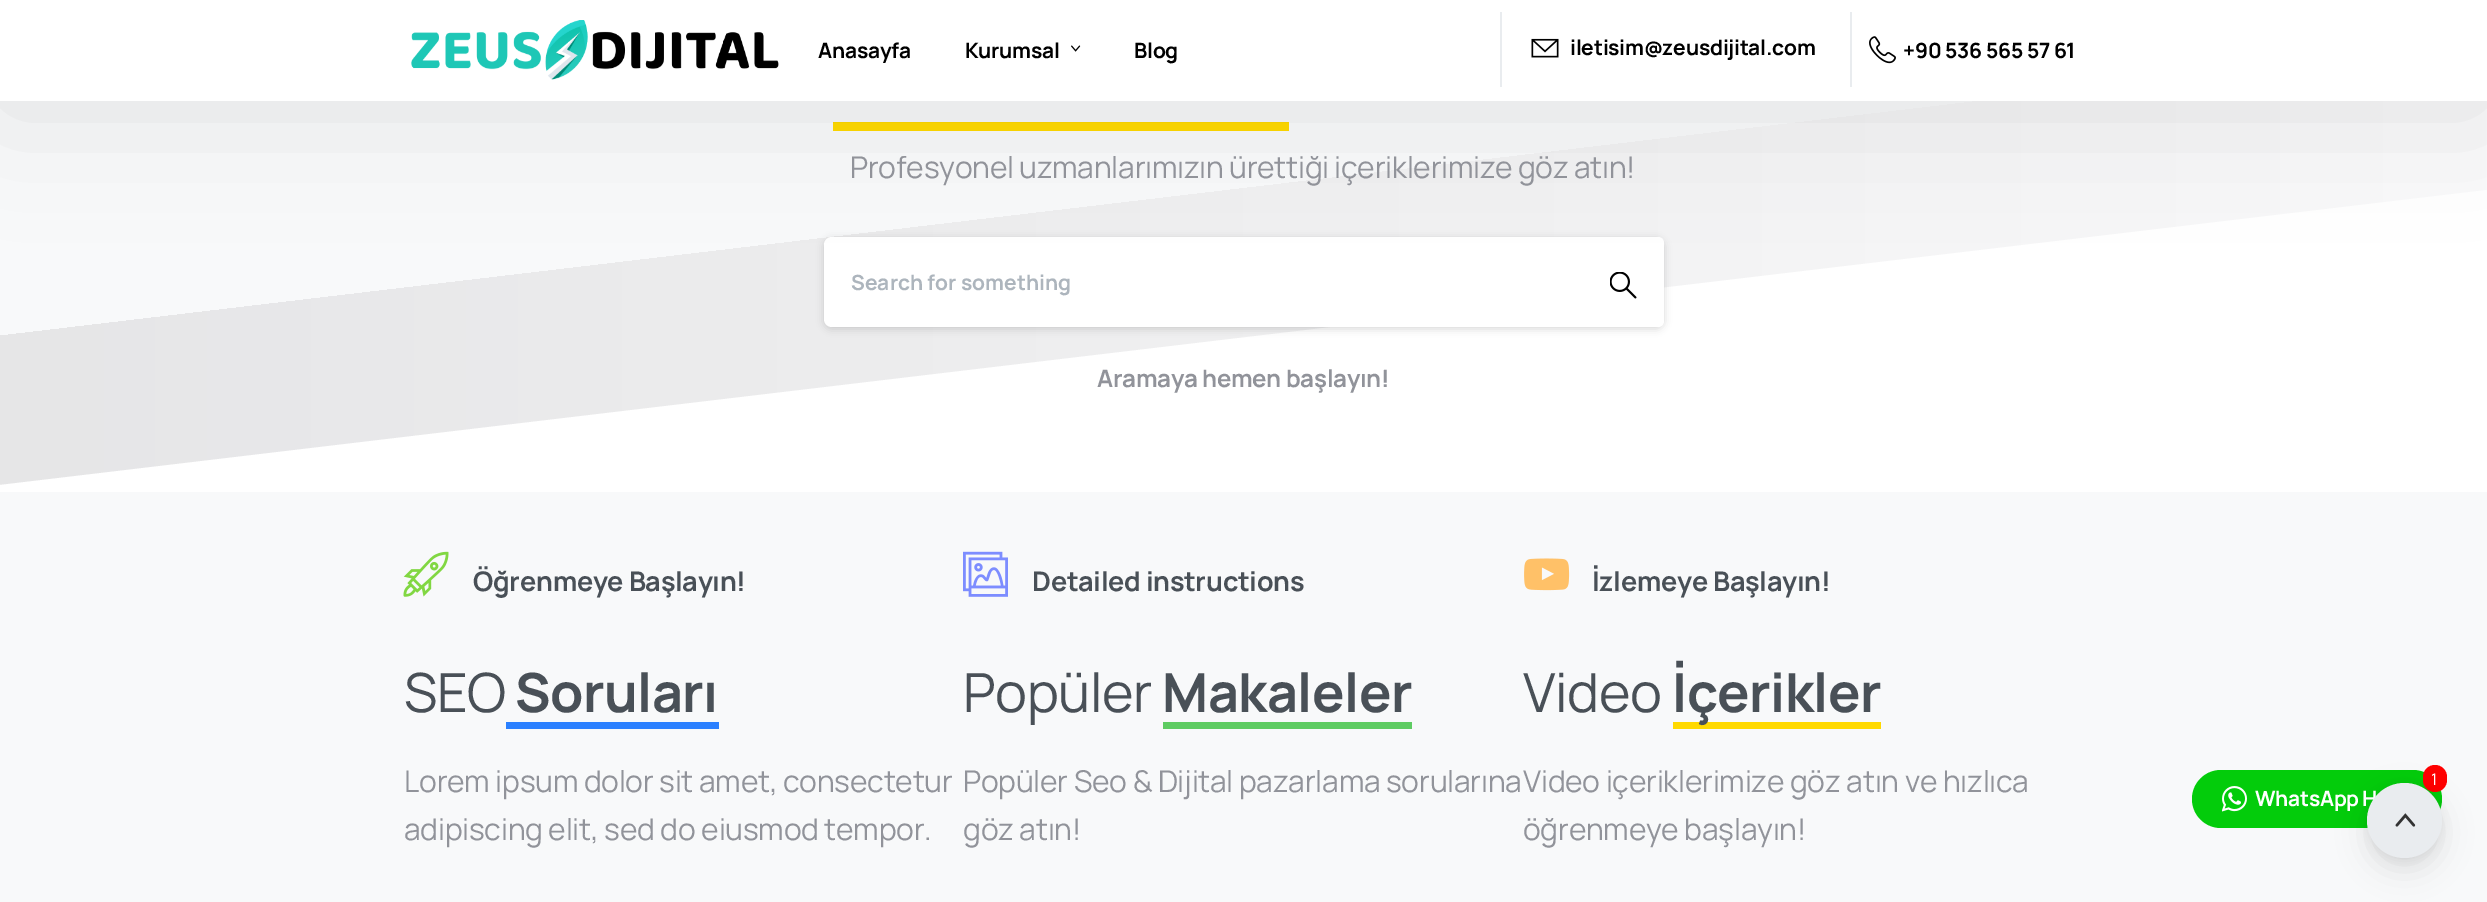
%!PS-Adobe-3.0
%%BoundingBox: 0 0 2487 902
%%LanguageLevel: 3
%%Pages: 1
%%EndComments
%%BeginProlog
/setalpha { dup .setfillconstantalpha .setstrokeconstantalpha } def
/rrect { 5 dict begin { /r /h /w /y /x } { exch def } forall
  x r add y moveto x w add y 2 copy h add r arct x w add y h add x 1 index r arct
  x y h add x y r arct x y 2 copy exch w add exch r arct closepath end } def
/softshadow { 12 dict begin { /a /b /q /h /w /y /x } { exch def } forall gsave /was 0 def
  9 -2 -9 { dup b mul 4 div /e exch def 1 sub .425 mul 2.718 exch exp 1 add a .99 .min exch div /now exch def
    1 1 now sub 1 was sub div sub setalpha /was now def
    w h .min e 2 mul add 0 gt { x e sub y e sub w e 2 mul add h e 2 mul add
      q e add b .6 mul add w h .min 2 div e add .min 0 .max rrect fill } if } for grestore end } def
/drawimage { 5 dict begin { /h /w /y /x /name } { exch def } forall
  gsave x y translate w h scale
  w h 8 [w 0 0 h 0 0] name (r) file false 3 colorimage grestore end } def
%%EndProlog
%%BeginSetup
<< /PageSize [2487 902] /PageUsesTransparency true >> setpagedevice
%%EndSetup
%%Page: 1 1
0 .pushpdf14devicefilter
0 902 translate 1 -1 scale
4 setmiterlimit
0.973 0.976 0.98 setrgbcolor
0 0 2487 902 rectfill
gsave newpath 0 336 moveto 2487 41 lineto 2487 491 lineto 0 491 lineto closepath clip newpath
<< /ShadingType 2 /ColorSpace /DeviceRGB /Coords [0 41 2487 41] /Extend [true true] /Function << /FunctionType 2 /Domain [0 1] /C0 [0.902 0.902 0.906] /C1 [0.98 0.98 0.984] /N 1 >> >> shfill grestore
1 setgray
newpath 0 485 moveto 2487 190 lineto 2487 492 lineto 0 492 lineto closepath fill
1 0.851 0 setrgbcolor
833 122 456 9 rectfill
0 setgray
824 239 840 90 8 4 0.15 softshadow
1 setgray
newpath 832 237 moveto 1583 237 lineto 1583 327 lineto 832 327 lineto 827.5 327 824 323.5 824 319 curveto 824 245 lineto 824 240.5 827.5 237 832 237 curveto closepath fill
newpath 1583 237 moveto 1658 237 lineto 1661.5 237 1664 239.5 1664 243 curveto 1664 321 lineto 1664 324.5 1661.5 327 1658 327 curveto 1583 327 lineto closepath fill
(images/5.raw) 1610 272 27 27 drawimage
0 setgray
0 8 2487 100 0 60 0.1 softshadow
1 setgray
0 0 2487 101 rectfill
(images/1.raw) 411 20 368 60 drawimage
(images/2.raw) 1071 45 10 7 drawimage
0.914 0.925 0.937 setrgbcolor
1500 12 2 75 rectfill
(images/3.raw) 1531 38 28 20 drawimage
1850 12 2 75 rectfill
(images/4.raw) 1869 36 27 28 drawimage
(images/6.raw) 403 551 46 46 drawimage
0.169 0.502 1 setrgbcolor
506 722 213 7 rectfill
(images/7.raw) 963 551 45 46 drawimage
0.369 0.8 0.384 setrgbcolor
1163 722 249 7 rectfill
(images/8.raw) 1524 558 46 33 drawimage
1 0.851 0 setrgbcolor
1673 722 208 7 rectfill
0.012 0.8 0.043 setrgbcolor
2192 770 250 58 29 rrect fill
1 0 0 setrgbcolor
2423 765 24 27 12 rrect fill
0 setgray
2367 795 75 75 37.5 14.5 0.1 softshadow
2367 786 75 75 37.5 4.5 0.05 softshadow
(images/10.raw) 2222 786 25 26 drawimage
/Manrope-Bold [21 0 0 -21 0 0] selectfont
818 58 moveto -0.25 0 (Anasayfa) ashow
965 58 moveto -0.25 0 (Kurumsal) ashow
1134 58 moveto -0.25 0 (Blog) ashow
1570 55 moveto -0.25 0 (iletisim@zeusdijital.com) ashow
1903 58 moveto -0.25 0 (+90 536 565 57 61) ashow
/Manrope-Regular [30 0 0 -30 0 0] selectfont
0.569 0.576 0.604 setrgbcolor
850 178 moveto -0.5 0 32 -0.25 0 (Profesyonel uzmanlarımızın ürettiği içeriklerimize göz atın!) awidthshow
/Manrope-Bold [21 0 0 -21 0 0] selectfont
0.678 0.71 0.741 setrgbcolor
851 290 moveto (Search for something) show
/Manrope-Bold [24 0 0 -24 0 0] selectfont
0.569 0.576 0.604 setrgbcolor
1097 387 moveto -0.25 0 (Aramaya hemen başlayın!) ashow
/Manrope-Bold [27 0 0 -27 0 0] selectfont
0.286 0.314 0.341 setrgbcolor
473 591 moveto -0.25 0 (Öğrenmeye Başlayın!) ashow
/Manrope-Regular [54 0 0 -54 0 0] selectfont
404 712 moveto -0.5 0 (SEO) ashow
/Manrope-Bold [54 0 0 -54 0 0] selectfont
515 712 moveto -0.5 0 (Soruları) ashow
/Manrope-Regular [30 0 0 -30 0 0] selectfont
0.569 0.576 0.604 setrgbcolor
404 792 moveto -0.25 0 (Lorem ipsum dolor sit amet, consectetur) ashow
404 840 moveto -0.25 0 (adipiscing elit, sed do eiusmod tempor.) ashow
/Manrope-Bold [27 0 0 -27 0 0] selectfont
0.286 0.314 0.341 setrgbcolor
1032 591 moveto -0.25 0 (Detailed instructions) ashow
/Manrope-Regular [54 0 0 -54 0 0] selectfont
963 712 moveto -0.5 0 (Popüler) ashow
/Manrope-Bold [54 0 0 -54 0 0] selectfont
1162 712 moveto -0.5 0 (Makaleler) ashow
/Manrope-Regular [30 0 0 -30 0 0] selectfont
0.569 0.576 0.604 setrgbcolor
963 792 moveto -0.25 0 (Popüler Seo & Dijital pazarlama sorularına) ashow
963 840 moveto -0.25 0 (göz atın!) ashow
/Manrope-Bold [27 0 0 -27 0 0] selectfont
0.286 0.314 0.341 setrgbcolor
1592 591 moveto -0.25 0 (İzlemeye Başlayın!) ashow
/Manrope-Regular [54 0 0 -54 0 0] selectfont
1523 712 moveto -0.5 0 (Video) ashow
/Manrope-Bold [54 0 0 -54 0 0] selectfont
1672 712 moveto -0.5 0 (İçerikler) ashow
/Manrope-Regular [30 0 0 -30 0 0] selectfont
0.569 0.576 0.604 setrgbcolor
1523 792 moveto -0.25 0 (Video içeriklerimize göz atın ve hızlıca) ashow
1523 840 moveto -0.25 0 (öğrenmeye başlayın!) ashow
/Manrope-Regular [16 0 0 -16 0 0] selectfont
1 setgray
2431 785 moveto -0.25 0 (1) ashow
/Manrope-Bold [21 0 0 -21 0 0] selectfont
2255 806 moveto -1 0 32 -0.25 0 (WhatsApp H) awidthshow
0.914 0.925 0.937 setrgbcolor
newpath 2404.5 820.5 37.5 0 360 arc closepath fill
(images/9.raw) 2395 813 21 14 drawimage
.poppdf14devicefilter showpage
%%EOF
